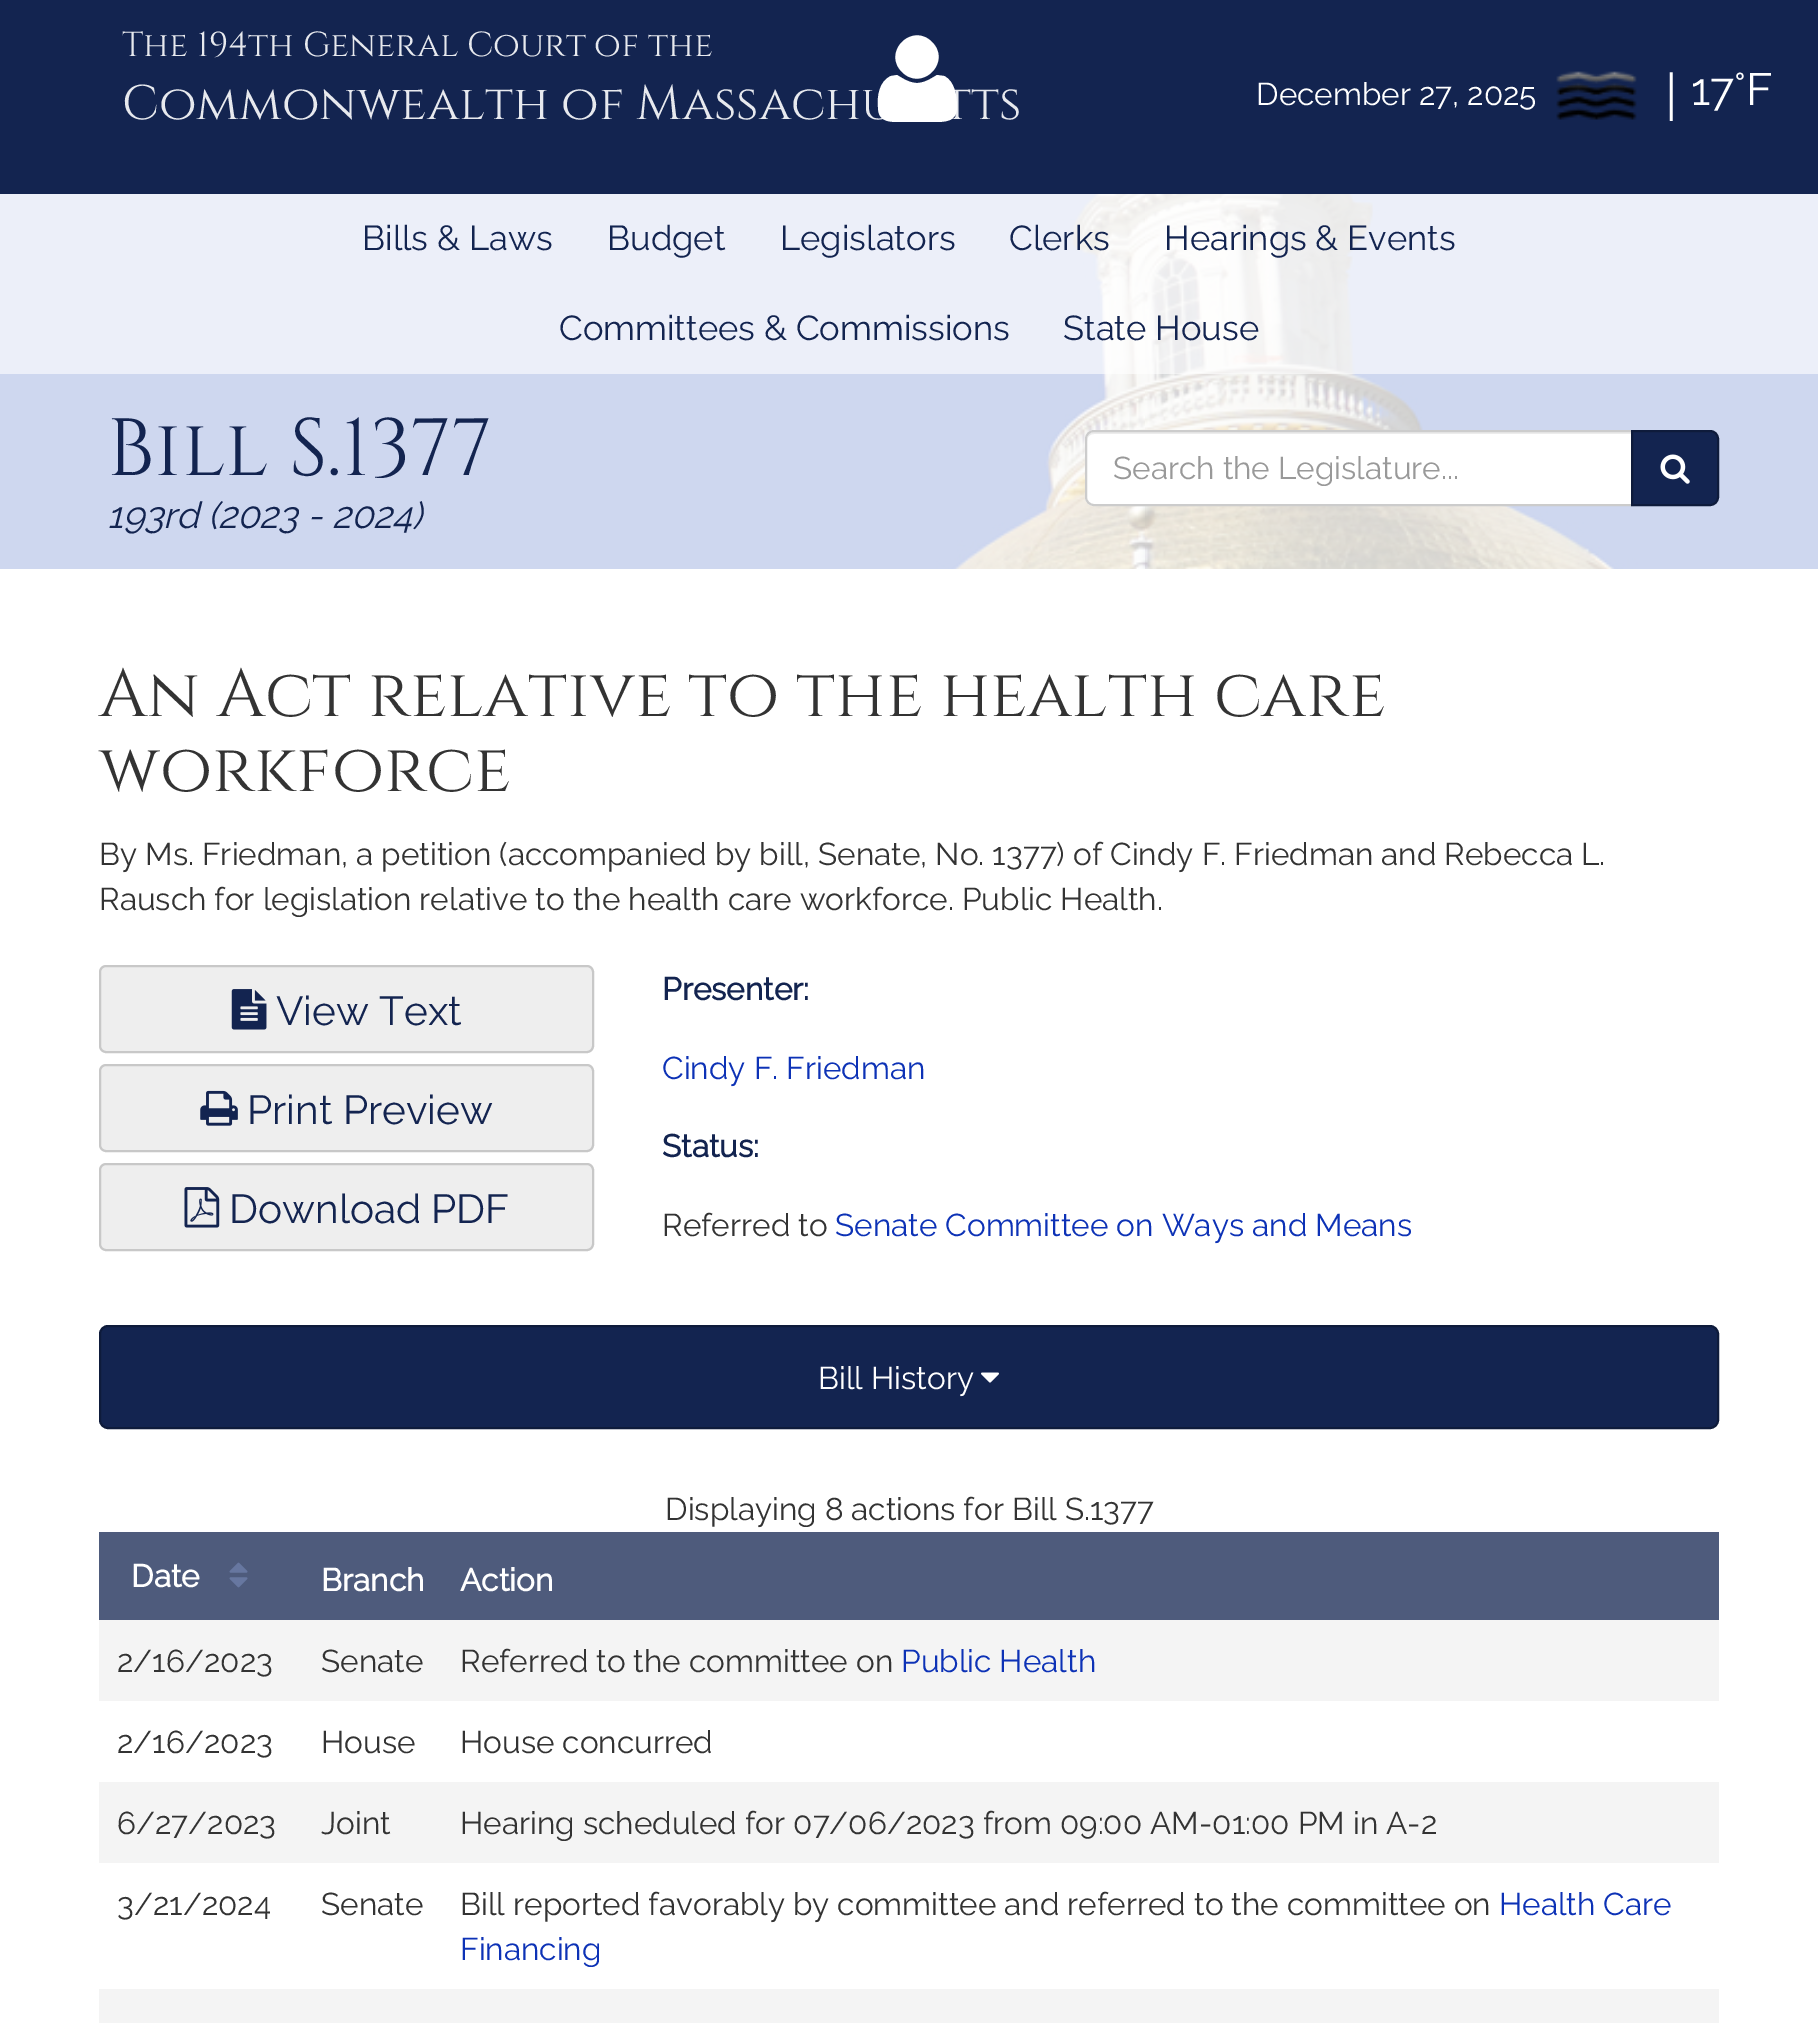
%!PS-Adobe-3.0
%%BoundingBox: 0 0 1818 2023
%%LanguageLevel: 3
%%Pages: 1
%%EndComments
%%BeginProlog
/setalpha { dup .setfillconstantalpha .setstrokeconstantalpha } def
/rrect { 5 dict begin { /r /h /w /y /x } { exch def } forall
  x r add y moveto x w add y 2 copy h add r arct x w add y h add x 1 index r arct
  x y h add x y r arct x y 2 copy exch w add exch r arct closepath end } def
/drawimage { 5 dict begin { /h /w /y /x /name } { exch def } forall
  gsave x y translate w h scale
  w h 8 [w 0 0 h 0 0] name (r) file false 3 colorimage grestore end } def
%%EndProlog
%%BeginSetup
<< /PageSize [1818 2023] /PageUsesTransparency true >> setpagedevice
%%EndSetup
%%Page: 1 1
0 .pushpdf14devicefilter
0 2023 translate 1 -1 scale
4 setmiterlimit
1 setgray
0 0 1818 2023 rectfill
(images/1.raw) 0 194 1818 375 drawimage
0.075 0.141 0.314 setrgbcolor
0 0 1818 194 rectfill
(images/2.raw) 1556 71 81 49 drawimage
0.9 setalpha
1 setgray
0 194 1818 180 rectfill
0.75 setalpha
0 374 1818 195 rectfill
1 setalpha
newpath 1094 430 moveto 1634 430 lineto 1634 506 lineto 1094 506 lineto 1089 506 1085 502 1085 497 curveto 1085 439 lineto 1085 434 1089 430 1094 430 curveto closepath fill
0.925 setgray
newpath 1094 434 moveto 1631 434 lineto 1631 432 lineto 1094 432 lineto 1089 432 1087 437 1087 441 curveto 1087 437 1090 434 1094 434 curveto closepath fill
0.8 setgray
2 setlinewidth
newpath 1094 431 moveto 1633 431 lineto 1633 505 lineto 1094 505 lineto 1089.5 505 1086 501.5 1086 497 curveto 1086 439 lineto 1086 434.5 1089.5 431 1094 431 curveto closepath stroke
0.075 0.141 0.314 setrgbcolor
newpath 1632 431 moveto 1710 431 lineto 1714.5 431 1718 434.5 1718 439 curveto 1718 497 lineto 1718 501.5 1714.5 505 1710 505 curveto 1632 505 lineto closepath gsave fill grestore
0.055 0.106 0.231 setrgbcolor
stroke
(images/3.raw) 1660 454 30 30 drawimage
0.933 setgray
100 966 493 86 6 rrect gsave fill grestore
0.784 setgray
stroke
(images/4.raw) 231 989 36 41 drawimage
0.933 setgray
100 1065 493 86 6 rrect gsave fill grestore
0.784 setgray
stroke
(images/5.raw) 200 1090 38 36 drawimage
0.933 setgray
100 1164 493 86 6 rrect gsave fill grestore
0.784 setgray
stroke
(images/6.raw) 184 1187 36 41 drawimage
0.075 0.141 0.314 setrgbcolor
100 1326 1618 102 8 rrect gsave fill grestore
0.055 0.106 0.231 setrgbcolor
stroke
(images/7.raw) 981 1372 18 11 drawimage
0.306 0.357 0.486 setrgbcolor
99 1532 1620 88 rectfill
(images/8.raw) 229 1562 19 26 drawimage
0.957 setgray
99 1620 1620 81 rectfill
99 1782 1620 81 rectfill
99 1989 1620 34 rectfill
/Cinzel-Regular [34.6 0 0 -34.6 0 0] selectfont
0.906 0.914 0.933 setrgbcolor
122 56 moveto (The 194th General Court of the) show
/Cinzel-Regular [48.5 0 0 -48.5 0 0] selectfont
122 119 moveto (Commonwealth of Massachu) show
943 119 moveto (tts) show
1 setgray
newpath 957 107 moveto 957 122 945 122 933 122 curveto 901 122 lineto 889 122 878 122 878 107 curveto 877 97 879 81 891 76 curveto 897 75 lineto 902 78 lineto 907 81 912 83 917 83 curveto 922 83 927 81 932 78 curveto 937 75 lineto 944 76 lineto 955 81 957 97 957 107 curveto closepath 932 42 moveto 952 62 922 92 902 72 curveto 882 52 912 22 932 42 curveto closepath fill
/Raleway-Thin [31.5 0 0 -31.5 0 0] selectfont
1256 105 moveto (December 27, 2025) show
/Raleway-Thin [54 0 0 -54 0 0] selectfont
1665 114 moveto (|) show
/Raleway-Thin [45 0 0 -45 0 0] selectfont
1691 105 moveto (17°F) show
/Raleway-Thin [34.6 0 0 -34.6 0 0] selectfont
0.075 0.141 0.314 setrgbcolor
362 250 moveto (Bills & Laws) show
607 250 moveto (Budget) show
780 250 moveto (Legislators) show
1009 250 moveto (Clerks) show
1164 250 moveto (Hearings & Events) show
559 340 moveto (Committees & Commissions) show
1063 340 moveto (State House) show
/Cinzel-Regular [81 0 0 -81 0 0] selectfont
107 475 moveto (Bill S.1377) show
/Raleway-ThinItalic [36.5 0 0 -36.5 0 0] selectfont
107 528 moveto (193rd \(2023 - 2024\)) show
/Raleway-Thin [31.5 0 0 -31.5 0 0] selectfont
0.6 setgray
1113 479 moveto (Search the Legislature...) show
/Cinzel-Regular [67.5 0 0 -67.5 0 0] selectfont
0.2 setgray
99 716 moveto (An Act relative to the health care) show
99 791 moveto (workforce) show
/Raleway-Thin [31.5 0 0 -31.5 0 0] selectfont
99 865 moveto (By Ms. Friedman, a petition \(accompanied by bill, Senate, No. 1377\) of Cindy F. Friedman and Rebecca L.) show
99 910 moveto (Rausch for legislation relative to the health care workforce. Public Health.) show
/Raleway-Thin [40.5 0 0 -40.5 0 0] selectfont
0.075 0.141 0.314 setrgbcolor
276 1025 moveto (View Text) show
247 1124 moveto (Print Preview) show
229 1223 moveto (Download PDF) show
/Raleway-Bold [31.5 0 0 -31.5 0 0] selectfont
662 1000 moveto (Presenter:) show
/Raleway-Thin [31.5 0 0 -31.5 0 0] selectfont
0.051 0.196 0.714 setrgbcolor
662 1079 moveto (Cindy F. Friedman) show
/Raleway-Bold [31.5 0 0 -31.5 0 0] selectfont
0.075 0.141 0.314 setrgbcolor
662 1157 moveto (Status:) show
/Raleway-Thin [31.5 0 0 -31.5 0 0] selectfont
0.2 setgray
662 1236 moveto (Referred to) show
0.051 0.196 0.714 setrgbcolor
835 1236 moveto (Senate Committee on Ways and Means) show
1 setgray
818 1389 moveto (Bill History) show
0.2 setgray
665 1520 moveto (Displaying 8 actions for Bill S.1377) show
/Raleway-Bold [31.5 0 0 -31.5 0 0] selectfont
1 setgray
131 1587 moveto (Date) show
321 1591 moveto (Branch) show
460 1591 moveto (Action) show
/Raleway-Thin [31.5 0 0 -31.5 0 0] selectfont
0.2 setgray
117 1672 moveto (2/16/2023) show
321 1672 moveto (Senate) show
460 1672 moveto (Referred to the committee on) show
0.051 0.196 0.714 setrgbcolor
901 1672 moveto (Public Health) show
0.2 setgray
117 1753 moveto (2/16/2023) show
321 1753 moveto (House) show
460 1753 moveto (House concurred) show
117 1834 moveto (6/27/2023) show
321 1834 moveto (Joint) show
460 1834 moveto (Hearing scheduled for 07/06/2023 from 09:00 AM-01:00 PM in A-2) show
117 1915 moveto (3/21/2024) show
321 1915 moveto (Senate) show
460 1915 moveto (Bill reported favorably by committee and referred to the committee on) show
0.051 0.196 0.714 setrgbcolor
1499 1915 moveto (Health Care) show
460 1960 moveto (Financing) show
.poppdf14devicefilter showpage
%%EOF
